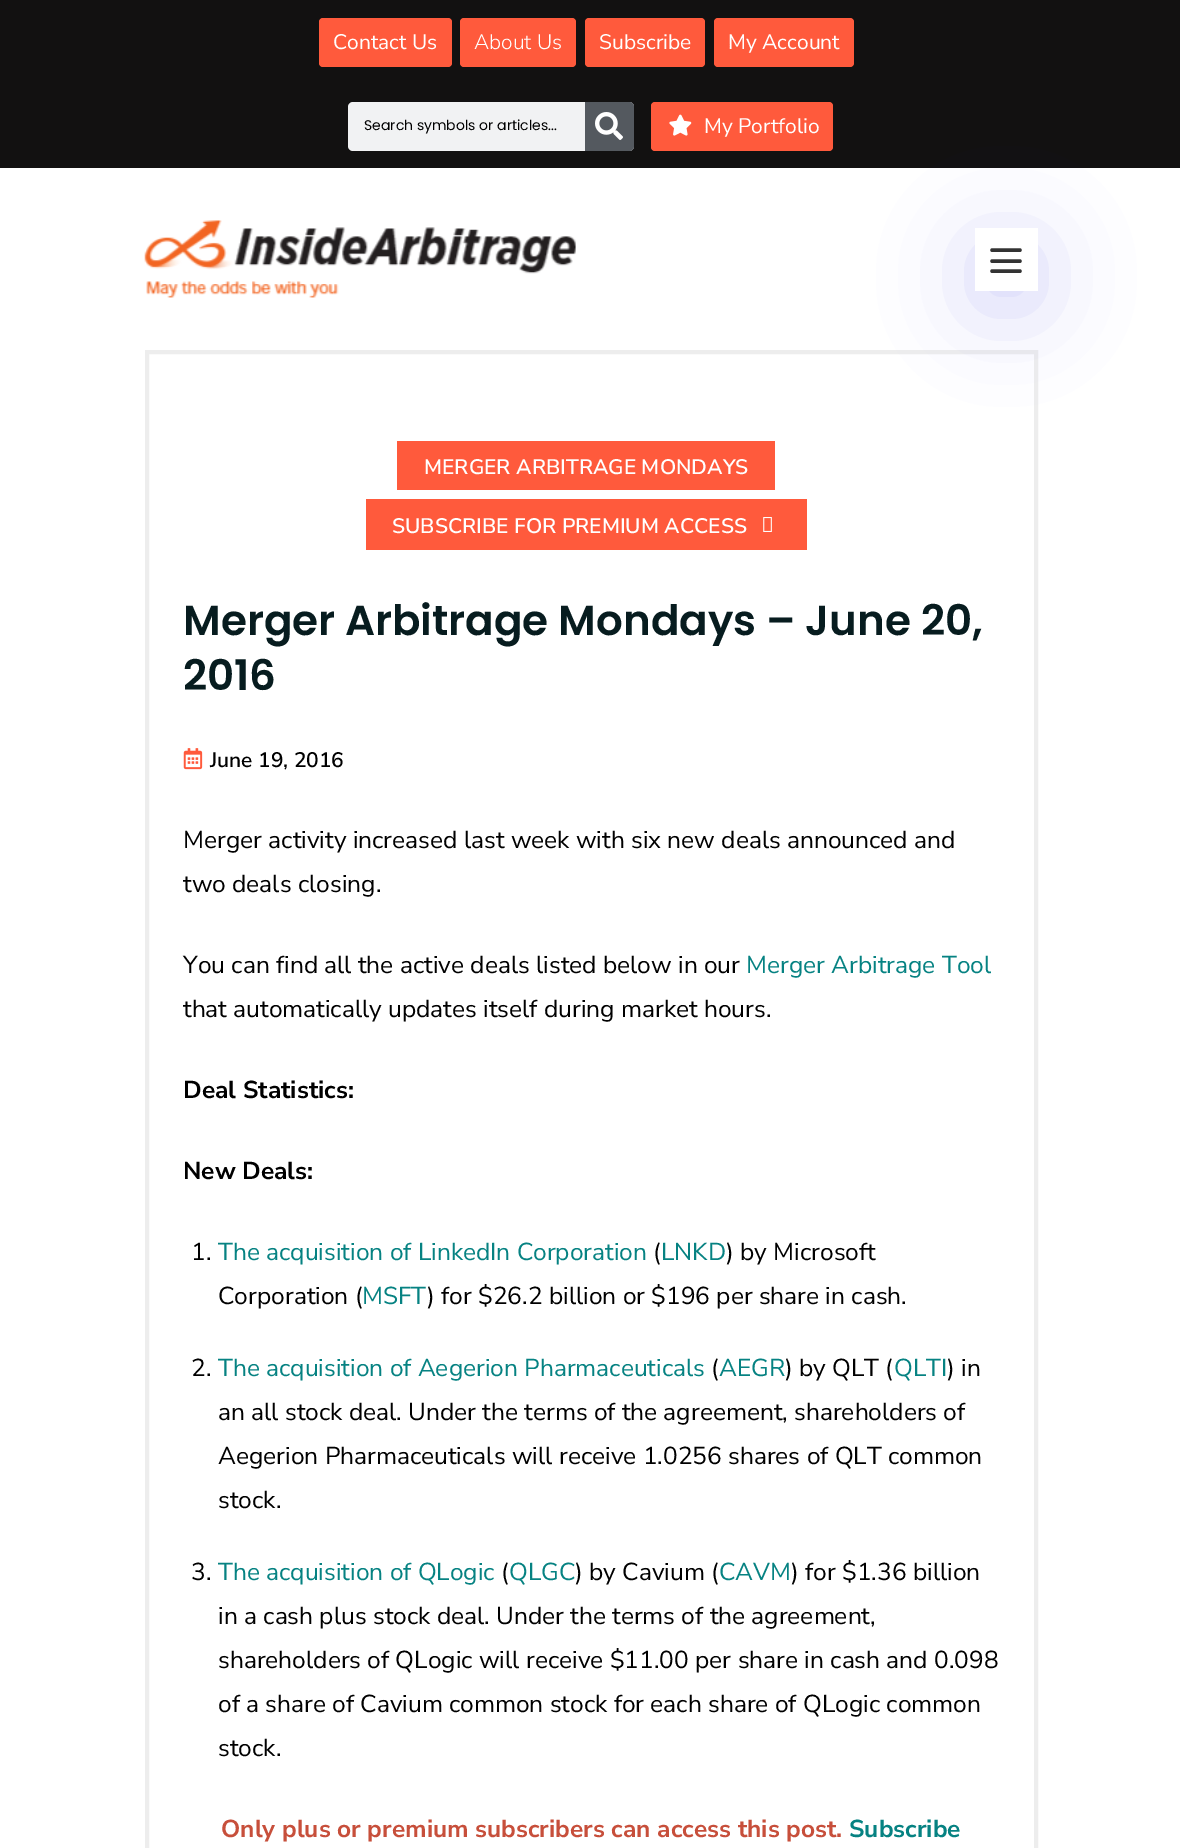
%!PS-Adobe-3.0
%%BoundingBox: 0 0 1180 1848
%%LanguageLevel: 3
%%Pages: 1
%%EndComments
%%BeginProlog
/setalpha { dup .setfillconstantalpha .setstrokeconstantalpha } def
/rrect { 5 dict begin { /r /h /w /y /x } { exch def } forall
  x r add y moveto x w add y 2 copy h add r arct x w add y h add x 1 index r arct
  x y h add x y r arct x y 2 copy exch w add exch r arct closepath end } def
/softshadow { 12 dict begin { /a /b /q /h /w /y /x } { exch def } forall gsave /was 0 def
  9 -2 -9 { dup b mul 4 div /e exch def 1 sub .425 mul 2.718 exch exp 1 add a .99 .min exch div /now exch def
    1 1 now sub 1 was sub div sub setalpha /was now def
    w h .min e 2 mul add 0 gt { x e sub y e sub w e 2 mul add h e 2 mul add
      q e add b .6 mul add w h .min 2 div e add .min 0 .max rrect fill } if } for grestore end } def
/drawimage { 5 dict begin { /h /w /y /x /name } { exch def } forall
  gsave x y translate w h scale
  w h 8 [w 0 0 h 0 0] name (r) file false 3 colorimage grestore end } def
%%EndProlog
%%BeginSetup
<< /PageSize [1180 1848] /PageUsesTransparency true >> setpagedevice
%%EndSetup
%%Page: 1 1
0 .pushpdf14devicefilter
0 1848 translate 1 -1 scale
4 setmiterlimit
1 setgray
0 0 1180 1848 rectfill
0.071 0.067 0.067 setrgbcolor
0 0 1180 168 rectfill
1 0.353 0.235 setrgbcolor
319 18 133 49 4 rrect fill
460 18 116 49 4 rrect fill
585 18 120 49 4 rrect fill
714 18 140 49 4 rrect fill
0.945 0.949 0.953 setrgbcolor
348 102 286 49 5 rrect fill
0.329 0.349 0.373 setrgbcolor
newpath 585 102 moveto 629 102 lineto 632 102 634 104 634 107 curveto 634 146 lineto 634 149 632 151 629 151 curveto 585 151 lineto closepath fill
(images/1.raw) 595 112 28 28 drawimage
1 0.353 0.235 setrgbcolor
651 102 182 49 4 rrect fill
(images/2.raw) 669 114 23 22 drawimage
(images/3.raw) 144 220 432 78 drawimage
0.929 setgray
4 setlinewidth
147 352 889 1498 rectstroke
gsave
newpath 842 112 moveto 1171 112 lineto 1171 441 lineto 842 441 lineto closepath 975 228 moveto 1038 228 lineto 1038 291 lineto 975 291 lineto closepath eoclip newpath
0.18 0.22 0.863 setrgbcolor
975 245 63 63 0 44 0.2 softshadow
grestore
0.2 setgray
3.5 setlinewidth
1 setlinecap
1 setlinejoin
newpath 992 250 moveto 1020 250 lineto 992 261 moveto 1020 261 lineto 992 271 moveto 1020 271 lineto stroke
1 0.353 0.235 setrgbcolor
397 441 378 49 rectfill
366 499 441 51 rectfill
(images/4.raw) 763 517 9 15 drawimage
(images/5.raw) 183 748 20 22 drawimage
/NunitoSans-Regular [21 0 0 -21 0 0] selectfont
1 setgray
333 49 moveto (Contact Us) show
/NunitoSans-Light [21 0 0 -21 0 0] selectfont
474 49 moveto (About Us) show
/NunitoSans-Regular [21 0 0 -21 0 0] selectfont
599 49 moveto (Subscribe) show
728 49 moveto (My Account) show
/Poppins-Regular [14 0 0 -14 0 0] selectfont
0 setgray
364 130 moveto (Search symbols or articles...) show
/NunitoSans-Regular [21 0 0 -21 0 0] selectfont
1 setgray
704 133 moveto (My Portfolio) show
/NunitoSans-SemiBold [21 0 0 -21 0 0] selectfont
424 474 moveto (MERGER ARBITRAGE MONDAYS) show
392 533 moveto (SUBSCRIBE FOR PREMIUM ACCESS) show
/Poppins-SemiBold [42 0 0 -42 0 0] selectfont
0.027 0.11 0.122 setrgbcolor
183 635 moveto (Merger Arbitrage Mondays – June 20,) show
183 690 moveto (2016) show
/NunitoSans-SemiBold [21 0 0 -21 0 0] selectfont
0 setgray
210 767 moveto (June 19, 2016) show
/NunitoSans-Regular [24.5 0 0 -24.5 0 0] selectfont
183 848 moveto (Merger activity increased last week with six new deals announced and) show
183 892 moveto (two deals closing.) show
183 973 moveto (You can find all the active deals listed below in our) show
0.024 0.51 0.51 setrgbcolor
746 973 moveto (Merger Arbitrage Tool) show
0 setgray
183 1017 moveto (that automatically updates itself during market hours.) show
/NunitoSans-Bold [24.5 0 0 -24.5 0 0] selectfont
183 1098 moveto (Deal Statistics:) show
183 1179 moveto (New Deals:) show
/NunitoSans-Regular [24.5 0 0 -24.5 0 0] selectfont
191 1260 moveto (1.) show
0.024 0.51 0.51 setrgbcolor
218 1260 moveto (The acquisition of LinkedIn Corporation) show
0 setgray
653 1260 moveto (\() show
0.024 0.51 0.51 setrgbcolor
661 1260 moveto (LNKD) show
0 setgray
726 1260 moveto (\) by Microsoft) show
218 1304 moveto (Corporation \() show
0.024 0.51 0.51 setrgbcolor
362 1304 moveto (MSFT) show
0 setgray
427 1304 moveto (\) for $26.2 billion or $196 per share in cash.) show
191 1376 moveto (2.) show
0.024 0.51 0.51 setrgbcolor
218 1376 moveto (The acquisition of Aegerion Pharmaceuticals) show
0 setgray
711 1376 moveto (\() show
0.024 0.51 0.51 setrgbcolor
719 1376 moveto (AEGR) show
0 setgray
785 1376 moveto (\) by QLT \() show
0.024 0.51 0.51 setrgbcolor
894 1376 moveto (QLTI) show
0 setgray
947 1376 moveto (\) in) show
218 1420 moveto (an all stock deal. Under the terms of the agreement, shareholders of) show
218 1464 moveto (Aegerion Pharmaceuticals will receive 1.0256 shares of QLT common) show
218 1508 moveto (stock.) show
191 1580 moveto (3.) show
0.024 0.51 0.51 setrgbcolor
218 1580 moveto (The acquisition of QLogic) show
0 setgray
501 1580 moveto (\() show
0.024 0.51 0.51 setrgbcolor
509 1580 moveto (QLGC) show
0 setgray
575 1580 moveto (\) by Cavium \() show
0.024 0.51 0.51 setrgbcolor
719 1580 moveto (CAVM) show
0 setgray
791 1580 moveto (\) for $1.36 billion) show
218 1624 moveto (in a cash plus stock deal. Under the terms of the agreement,) show
218 1668 moveto (shareholders of QLogic will receive $11.00 per share in cash and 0.098) show
218 1712 moveto (of a share of Cavium common stock for each share of QLogic common) show
218 1756 moveto (stock.) show
/NunitoSans-Bold [24.5 0 0 -24.5 0 0] selectfont
0.78 0.31 0.231 setrgbcolor
221 1837 moveto (Only plus or premium subscribers can access this post.) show
0.024 0.51 0.51 setrgbcolor
849 1837 moveto (Subscribe) show
.poppdf14devicefilter showpage
%%EOF
